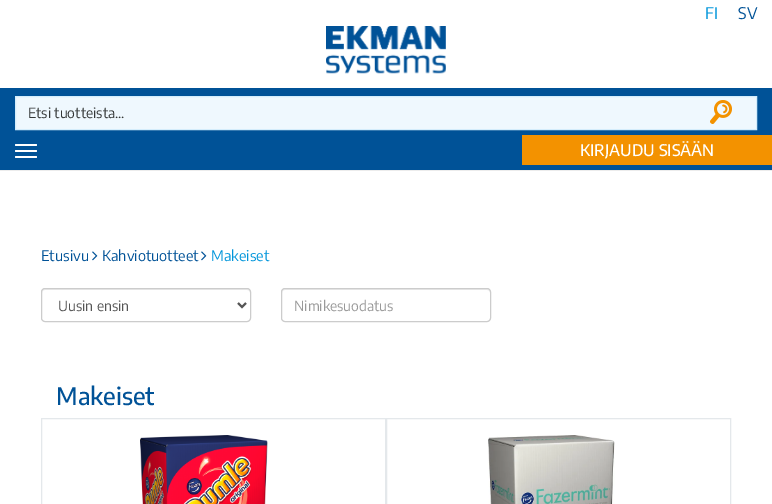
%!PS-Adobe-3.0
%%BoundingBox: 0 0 772 504
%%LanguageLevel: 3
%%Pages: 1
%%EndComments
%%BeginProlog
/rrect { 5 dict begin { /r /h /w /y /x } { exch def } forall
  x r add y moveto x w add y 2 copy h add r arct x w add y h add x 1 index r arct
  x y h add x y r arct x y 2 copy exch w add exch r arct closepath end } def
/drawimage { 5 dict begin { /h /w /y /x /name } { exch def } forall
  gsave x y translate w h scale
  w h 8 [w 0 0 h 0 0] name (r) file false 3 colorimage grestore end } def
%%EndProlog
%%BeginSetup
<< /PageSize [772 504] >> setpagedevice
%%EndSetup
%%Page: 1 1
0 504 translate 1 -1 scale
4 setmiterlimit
1 setgray
0 0 772 504 rectfill
0.925 setgray
0 170 772 1 rectfill
(images/1.raw) 326 26 120 48 drawimage
0 0.322 0.592 setrgbcolor
0 88 772 82 rectfill
0.937 0.973 0.996 setrgbcolor
newpath 15.5 96.5 moveto 756.5 96.5 lineto 756.5 129.5 lineto 15.5 129.5 lineto closepath gsave fill grestore
0.831 0.929 0.988 setrgbcolor
stroke
(images/2.raw) 710 100 22 24 drawimage
1 setgray
15 144 22 2 1 rrect fill
15 150 22 2 1 rrect fill
15 156 22 2 1 rrect fill
0.953 0.573 0 setrgbcolor
522 135 250 30 rectfill
(images/3.raw) 92 251 6 10 drawimage
(images/3.raw) 201 251 6 10 drawimage
0.925 setgray
newpath 45 290 moveto 247 290 lineto 249 290 250 291 250 293 curveto 250 291 249 289 247 289 curveto 44 289 lineto 42 290 42 291 42 293 curveto 42 291 43 290 45 290 curveto closepath fill
0.8 setgray
41.5 288.5 209 33 3.5 rrect stroke
0.333 setgray
2 setlinewidth
newpath 238 303 moveto 242 307 lineto 246 303 lineto stroke
0.925 setgray
newpath 285 290 moveto 487 290 lineto 489 290 490 291 490 293 curveto 490 291 489 289 487 289 curveto 284 289 lineto 282 290 282 291 282 293 curveto 282 291 283 290 285 290 curveto closepath fill
0.8 setgray
1 setlinewidth
281.5 288.5 209 33 3.5 rrect stroke
0.894 0.91 0.922 setrgbcolor
41.5 418.5 344 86 rectstroke
(images/4.raw) 140 435 128 69 drawimage
386.5 418.5 344 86 rectstroke
(images/5.raw) 488 435 127 69 drawimage
/EncodeSansCondensed-Regular [16 0 0 -16 0 0] selectfont
0 0.584 0.859 setrgbcolor
705 19 moveto (FI) show
0 0.322 0.592 setrgbcolor
738 19 moveto (SV) show
/EncodeSansCondensed-Regular [14 0 0 -14 0 0] selectfont
0.204 0.216 0.216 setrgbcolor
28 118 moveto (Etsi tuotteista...) show
/EncodeSansCondensed-Medium [16 0 0 -16 0 0] selectfont
1 setgray
580 156 moveto (KIRJAUDU SISÄÄN) show
/EncodeSansCondensed-Regular [14.5 0 0 -14.5 0 0] selectfont
0 0.322 0.592 setrgbcolor
41 261 moveto (Etusivu) show
102 261 moveto (Kahviotuotteet) show
0 0.584 0.859 setrgbcolor
211 261 moveto (Makeiset) show
/EncodeSansCondensed-Regular [14 0 0 -14 0 0] selectfont
0.333 setgray
58 311 moveto (Uusin ensin) show
0.6 setgray
294 311 moveto (Nimikesuodatus) show
/EncodeSansCondensed-Medium [24 0 0 -24 0 0] selectfont
0 0.322 0.592 setrgbcolor
56 405 moveto (Makeiset) show
showpage
%%EOF
